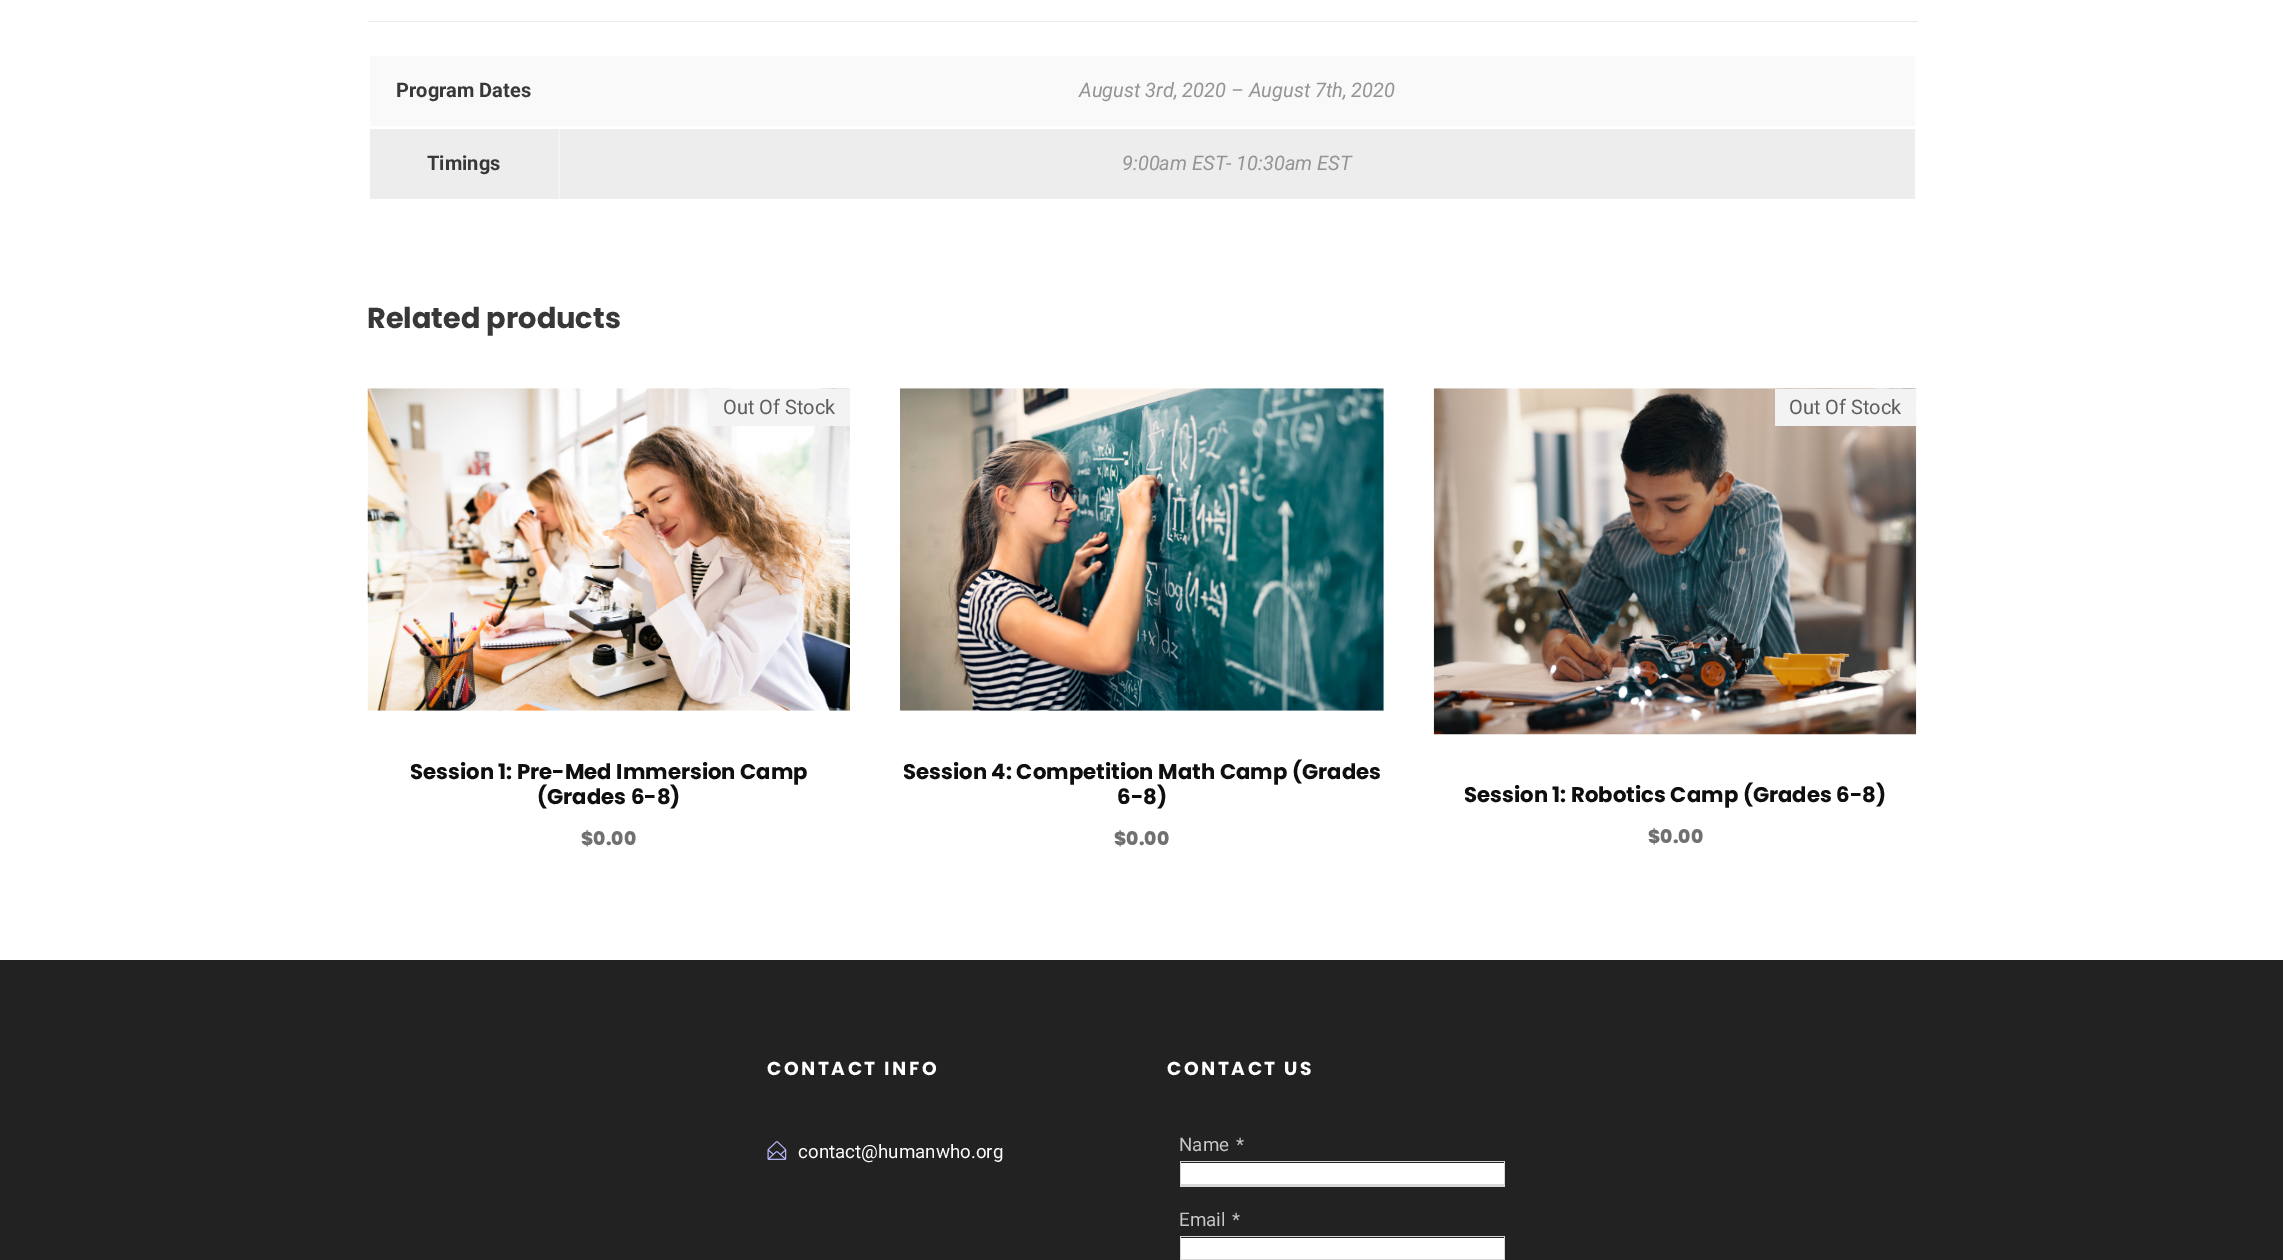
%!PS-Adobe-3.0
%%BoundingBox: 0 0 2283 1260
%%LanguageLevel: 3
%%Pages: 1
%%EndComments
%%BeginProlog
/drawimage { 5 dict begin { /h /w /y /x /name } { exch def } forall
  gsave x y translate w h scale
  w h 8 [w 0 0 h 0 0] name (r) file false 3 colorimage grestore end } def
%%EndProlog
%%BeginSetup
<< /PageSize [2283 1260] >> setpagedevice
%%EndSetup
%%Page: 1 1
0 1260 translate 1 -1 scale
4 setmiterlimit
1 setgray
0 0 2283 1260 rectfill
0.922 setgray
368 21 1550 1 rectfill
0.976 setgray
370 56 1545 70 rectfill
0.953 setgray
558 129 2 70 rectfill
0.929 setgray
370 129 188 70 rectfill
560 129 1355 70 rectfill
(images/1.raw) 367 388 483 323 drawimage
0.953 setgray
708 389 142 37 rectfill
(images/2.raw) 900 388 484 323 drawimage
(images/3.raw) 1433 388 484 347 drawimage
1775 389 141 37 rectfill
0.133 setgray
0 960 2283 300 rectfill
(images/4.raw) 767 1141 20 19 drawimage
1 setgray
1181 1163 323 21 rectfill
0.843 setgray
1180 1161 325 1 rectfill
1504 1161 1 25 rectfill
1180 1184 325 3 rectfill
1180 1161 1 25 rectfill
1 setgray
1181 1238 323 21 rectfill
0.843 setgray
1180 1236 325 1 rectfill
1504 1236 1 24 rectfill
1180 1259 325 1 rectfill
1180 1236 1 24 rectfill
/Roboto-Bold [20 0 0 -20 0 0] selectfont
0.22 setgray
396 97 moveto (Program Dates) show
/Roboto-Italic [20 0 0 -20 0 0] selectfont
0.58 setgray
1079 97 moveto (August 3rd, 2020 – August 7th, 2020) show
/Roboto-Bold [20 0 0 -20 0 0] selectfont
0.22 setgray
427 170 moveto (Timings) show
/Roboto-Italic [20 0 0 -20 0 0] selectfont
0.58 setgray
1122 170 moveto (9:00am EST- 10:30am EST) show
/Poppins-Bold [28.75 0 0 -28.75 0 0] selectfont
0.22 setgray
367 328 moveto (Related products) show
/Roboto-Regular [20 0 0 -20 0 0] selectfont
0.369 setgray
723 414 moveto (Out Of Stock) show
/Poppins-Bold [21.25 0 0 -21.25 0 0] selectfont
0.059 setgray
410 779 moveto (Session 1: Pre-Med Immersion Camp) show
537 804 moveto (\(Grades 6-8\)) show
/Poppins-ExtraBold [18.75 0 0 -18.75 0 0] selectfont
0.439 setgray
581 845 moveto ($0.00) show
/Poppins-Bold [21.25 0 0 -21.25 0 0] selectfont
0.059 setgray
903 779 moveto (Session 4: Competition Math Camp \(Grades) show
1117 804 moveto (6-8\)) show
/Poppins-ExtraBold [18.75 0 0 -18.75 0 0] selectfont
0.439 setgray
1114 845 moveto ($0.00) show
/Roboto-Regular [20 0 0 -20 0 0] selectfont
0.369 setgray
1789 414 moveto (Out Of Stock) show
/Poppins-Bold [21.25 0 0 -21.25 0 0] selectfont
0.059 setgray
1464 802 moveto (Session 1: Robotics Camp \(Grades 6-8\)) show
/Poppins-ExtraBold [18.75 0 0 -18.75 0 0] selectfont
0.439 setgray
1648 843 moveto ($0.00) show
/Poppins-Bold [18.75 0 0 -18.75 0 0] selectfont
1 setgray
767 1075 moveto 2.5 0 (CONTACT INFO) ashow
/Roboto-Regular [18.75 0 0 -18.75 0 0] selectfont
798 1158 moveto (contact@humanwho.org) show
/Poppins-Bold [18.75 0 0 -18.75 0 0] selectfont
1167 1075 moveto 2.5 0 (CONTACT US) ashow
/Roboto-Regular [18.75 0 0 -18.75 0 0] selectfont
0.78 setgray
1179 1151 moveto (Name) show
1236 1151 moveto (*) show
1179 1226 moveto (Email) show
1232 1226 moveto (*) show
showpage
%%EOF
